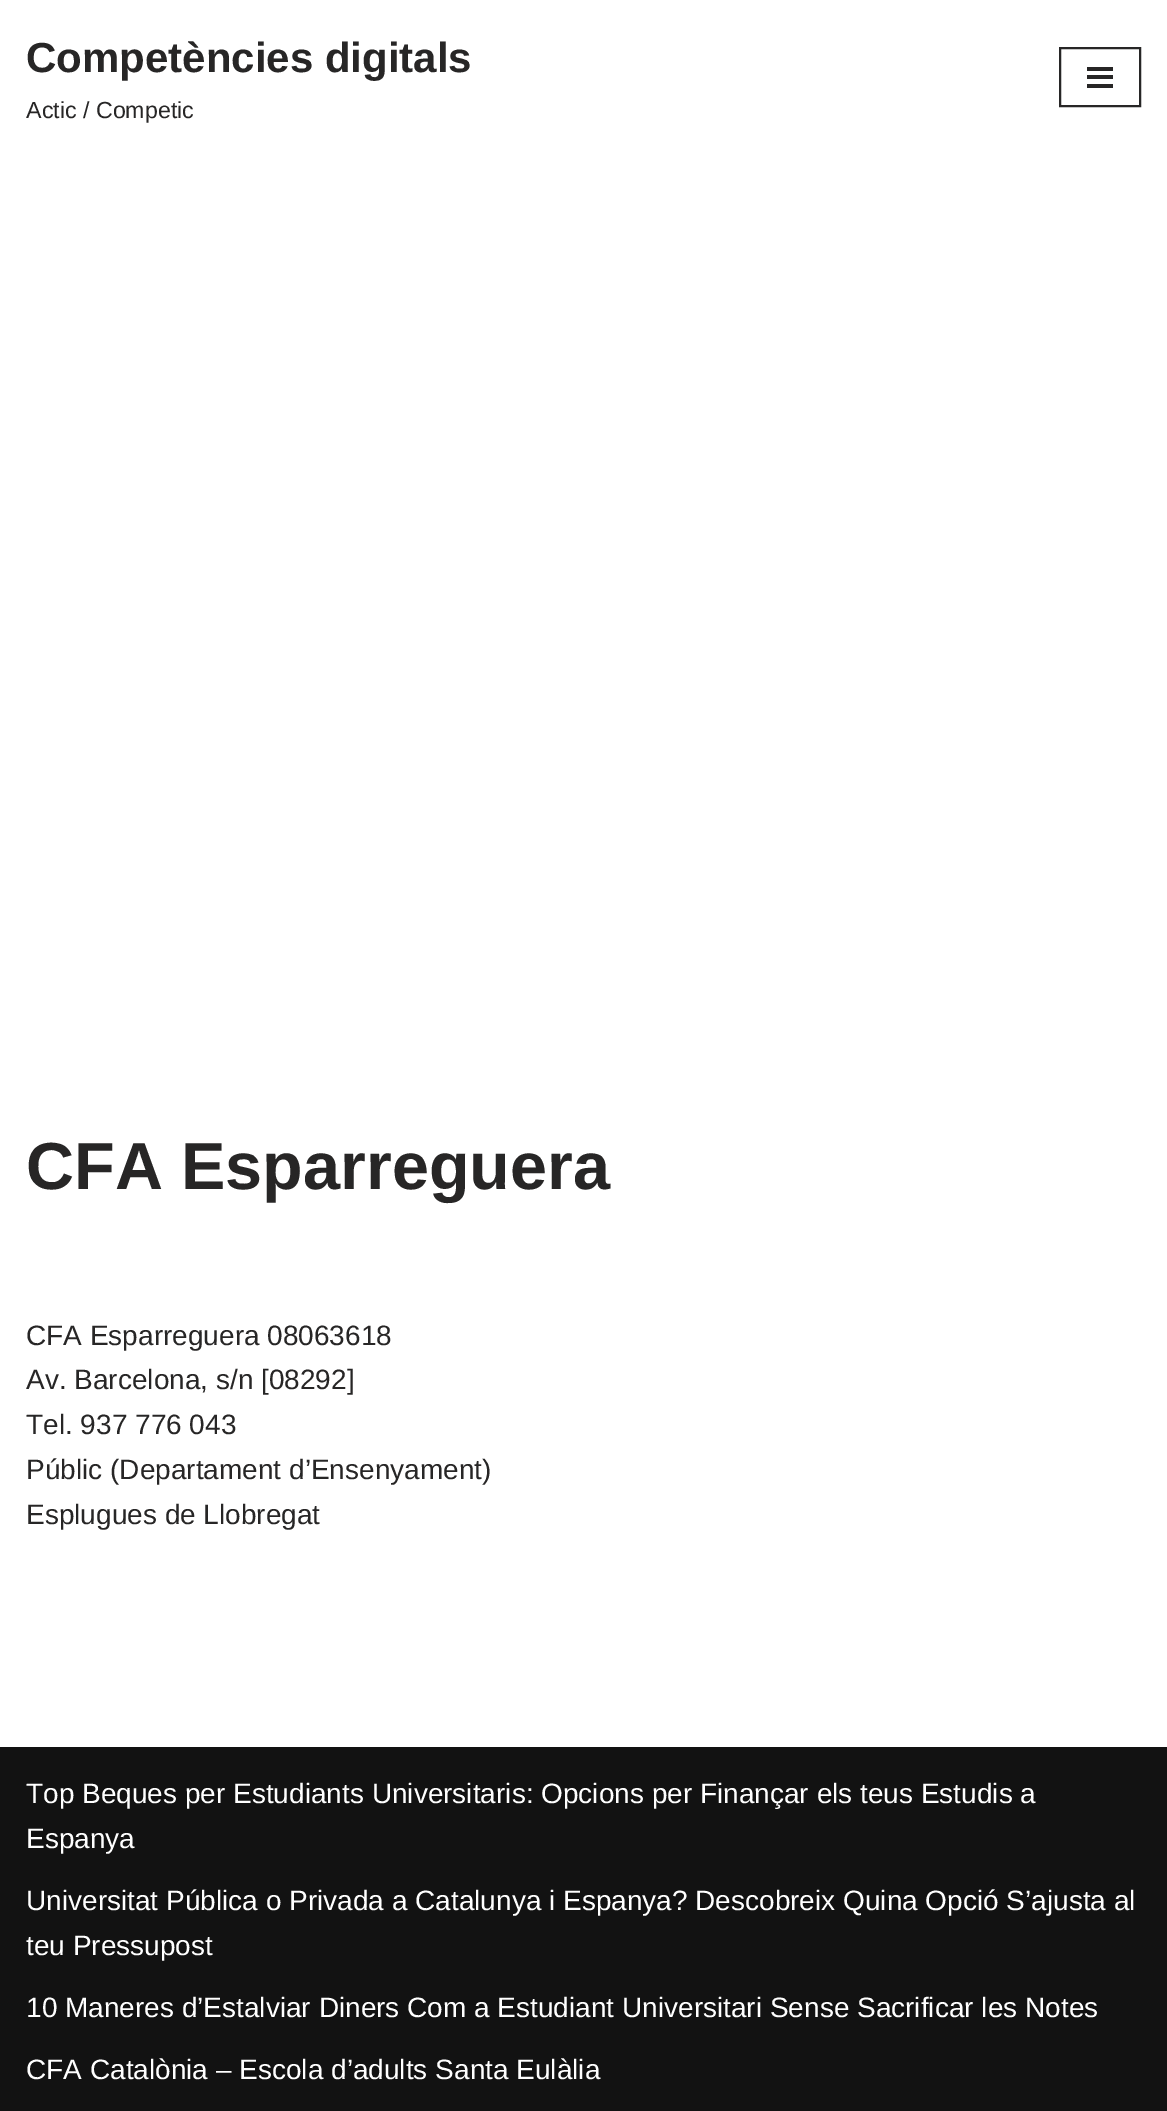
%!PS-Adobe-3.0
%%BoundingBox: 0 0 1167 2111
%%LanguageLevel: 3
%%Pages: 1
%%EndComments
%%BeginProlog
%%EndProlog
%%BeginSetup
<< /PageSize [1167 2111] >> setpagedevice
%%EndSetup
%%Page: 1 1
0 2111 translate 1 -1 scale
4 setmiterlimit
1 setgray
0 0 1167 2111 rectfill
0.153 0.149 0.149 setrgbcolor
2 setlinewidth
1060 48 80 58 rectstroke
1087 67 26 4 rectfill
1087 75 26 4 rectfill
1087 84 26 4 rectfill
0.071 setgray
0 1747 1167 364 rectfill
/LiberationSans-Bold [42 0 0 -42 0 0] selectfont
0.153 0.149 0.149 setrgbcolor
26 72 moveto (Competències digitals) show
/LiberationSans-Regular [23.25 0 0 -23.25 0 0] selectfont
26 118 moveto (Actic / Competic) show
/LiberationSans-Bold [66.5 0 0 -66.5 0 0] selectfont
26 1189 moveto (CFA Esparreguera) show
/LiberationSans-Regular [28 0 0 -28 0 0] selectfont
26 1345 moveto (CFA Esparreguera 08063618) show
26 1389 moveto (Av. Barcelona, s/n [08292]) show
26 1434 moveto (Tel. 937 776 043) show
26 1479 moveto (Públic \(Departament d’Ensenyament\)) show
26 1524 moveto (Esplugues de Llobregat) show
1 setgray
26 1803 moveto (Top Beques per Estudiants Universitaris: Opcions per Finançar els teus Estudis a) show
26 1848 moveto (Espanya) show
26 1910 moveto (Universitat Pública o Privada a Catalunya i Espanya? Descobreix Quina Opció S’ajusta al) show
26 1955 moveto (teu Pressupost) show
26 2017 moveto (10 Maneres d’Estalviar Diners Com a Estudiant Universitari Sense Sacrificar les Notes) show
26 2079 moveto (CFA Catalònia – Escola d’adults Santa Eulàlia) show
showpage
%%EOF
